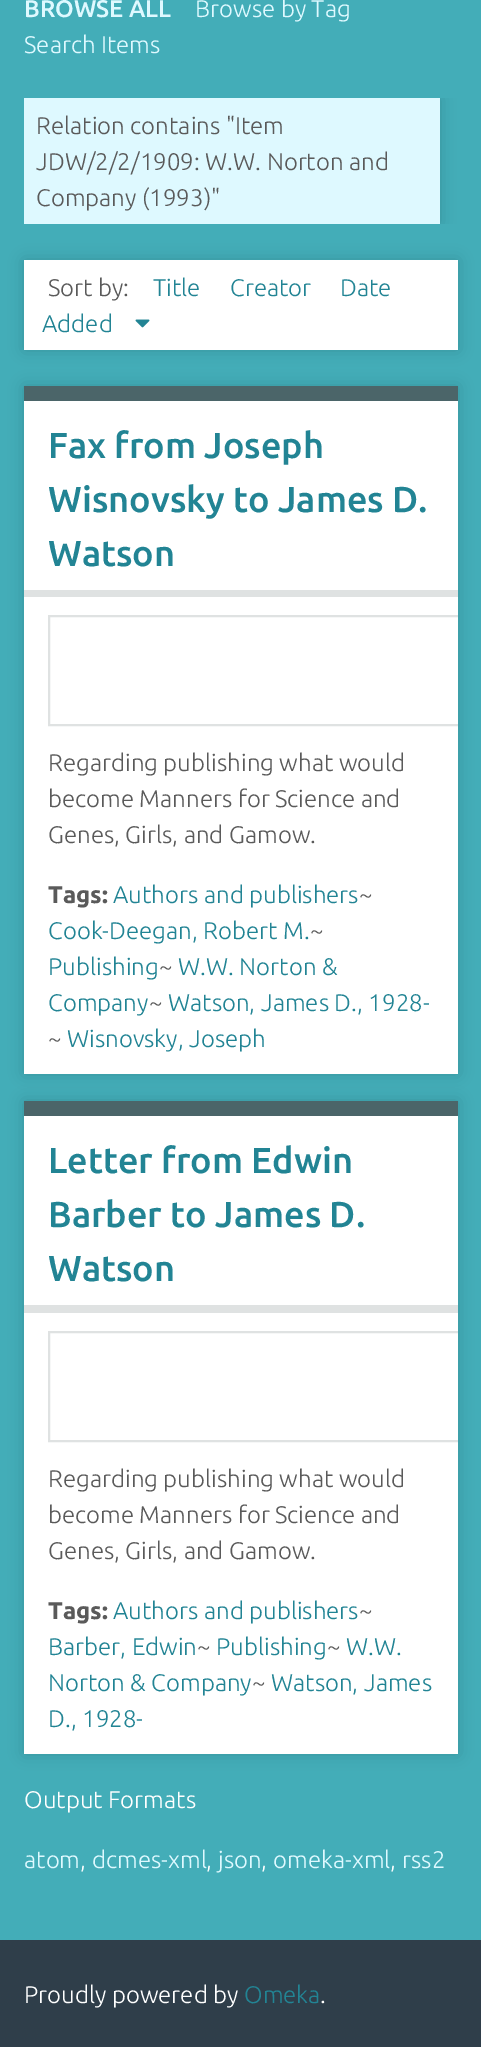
%!PS-Adobe-3.0
%%BoundingBox: 0 0 481 2047
%%LanguageLevel: 3
%%Pages: 1
%%EndComments
%%BeginProlog
/setalpha { dup .setfillconstantalpha .setstrokeconstantalpha } def
/rrect { 5 dict begin { /r /h /w /y /x } { exch def } forall
  x r add y moveto x w add y 2 copy h add r arct x w add y h add x 1 index r arct
  x y h add x y r arct x y 2 copy exch w add exch r arct closepath end } def
/softshadow { 12 dict begin { /a /b /q /h /w /y /x } { exch def } forall gsave /was 0 def
  9 -2 -9 { dup b mul 4 div /e exch def 1 sub .425 mul 2.718 exch exp 1 add a .99 .min exch div /now exch def
    1 1 now sub 1 was sub div sub setalpha /was now def
    w h .min e 2 mul add 0 gt { x e sub y e sub w e 2 mul add h e 2 mul add
      q e add b .6 mul add w h .min 2 div e add .min 0 .max rrect fill } if } for grestore end } def
/drawimage { 5 dict begin { /h /w /y /x /name } { exch def } forall
  gsave x y translate w h scale
  w h 8 [w 0 0 h 0 0] name (r) file false 3 colorimage grestore end } def
%%EndProlog
%%BeginSetup
<< /PageSize [481 2047] /PageUsesTransparency true >> setpagedevice
%%EndSetup
%%Page: 1 1
0 .pushpdf14devicefilter
0 2047 translate 1 -1 scale
4 setmiterlimit
0.184 0.243 0.29 setrgbcolor
0 0 481 2047 rectfill
0.263 0.678 0.722 setrgbcolor
0 0 481 1940 rectfill
gsave
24 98 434 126 rectclip
0 setgray
24 98 416 126 0 7.5 0.15 softshadow
grestore
0.871 0.976 1 setrgbcolor
24 98 416 126 rectfill
0 setgray
24 260 434 90 0 7.5 0.15 softshadow
1 setgray
24 260 434 90 rectfill
(images/1.raw) 135 319 15 9 drawimage
0 setgray
24 386 434 688 0 7.5 0.15 softshadow
1 setgray
24 401 434 673 rectfill
0.294 0.396 0.412 setrgbcolor
24 386 434 15 rectfill
0.875 0.886 0.886 setrgbcolor
24 590 434 7 rectfill
gsave
24 401 434 673 rectclip
2 setlinewidth
49 616 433 109 rectstroke
grestore
0 setgray
24 1101 434 653 0 7.5 0.15 softshadow
1 setgray
24 1116 434 638 rectfill
0.294 0.396 0.412 setrgbcolor
24 1101 434 15 rectfill
0.875 0.886 0.886 setrgbcolor
24 1305 434 8 rectfill
gsave
24 1116 434 638 rectclip
2 setlinewidth
49 1332 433 109 rectstroke
grestore
/Ubuntu-Medium [24 0 0 -24 0 0] selectfont
0.871 0.976 1 setrgbcolor
24 17 moveto (BROWSE ALL) show
/Ubuntu-Light [24 0 0 -24 0 0] selectfont
195 17 moveto (Browse by Tag) show
24 53 moveto (Search Items) show
0.353 setgray
36 134 moveto (Relation contains "Item) show
36 170 moveto (JDW/2/2/1909: W.W. Norton and) show
36 206 moveto (Company \(1993\)") show
0.133 0.518 0.58 setrgbcolor
153 296 moveto (Title) show
340 296 moveto (Date) show
42 332 moveto (Added) show
230 296 moveto (Creator) show
0.353 setgray
48 296 moveto (Sort by:) show
/Ubuntu-Medium [36 0 0 -36 0 0] selectfont
0.133 0.518 0.58 setrgbcolor
48 458 moveto (Fax from Joseph) show
48 512 moveto (Wisnovsky to James D.) show
48 566 moveto (Watson) show
/Ubuntu-Light [24 0 0 -24 0 0] selectfont
0.353 setgray
48 771 moveto (Regarding publishing what would) show
48 807 moveto (become Manners for Science and) show
48 843 moveto (Genes, Girls, and Gamow.) show
/Ubuntu-Bold [24 0 0 -24 0 0] selectfont
48 903 moveto (Tags:) show
/Ubuntu-Light [24 0 0 -24 0 0] selectfont
0.133 0.518 0.58 setrgbcolor
113 903 moveto (Authors and publishers) show
0.353 setgray
359 903 moveto (~) show
0.133 0.518 0.58 setrgbcolor
48 939 moveto (Cook-Deegan, Robert M.) show
0.353 setgray
310 939 moveto (~) show
0.133 0.518 0.58 setrgbcolor
48 975 moveto (Publishing) show
0.353 setgray
159 975 moveto (~) show
0.133 0.518 0.58 setrgbcolor
178 975 moveto (W.W. Norton &) show
48 1011 moveto (Company) show
0.353 setgray
149 1011 moveto (~) show
0.133 0.518 0.58 setrgbcolor
168 1011 moveto (Watson, James D., 1928-) show
0.353 setgray
48 1047 moveto (~) show
0.133 0.518 0.58 setrgbcolor
67 1047 moveto (Wisnovsky, Joseph) show
/Ubuntu-Medium [36 0 0 -36 0 0] selectfont
48 1173 moveto (Letter from Edwin) show
48 1227 moveto (Barber to James D.) show
48 1281 moveto (Watson) show
/Ubuntu-Light [24 0 0 -24 0 0] selectfont
0.353 setgray
48 1487 moveto (Regarding publishing what would) show
48 1523 moveto (become Manners for Science and) show
48 1559 moveto (Genes, Girls, and Gamow.) show
/Ubuntu-Bold [24 0 0 -24 0 0] selectfont
48 1619 moveto (Tags:) show
/Ubuntu-Light [24 0 0 -24 0 0] selectfont
0.133 0.518 0.58 setrgbcolor
113 1619 moveto (Authors and publishers) show
0.353 setgray
359 1619 moveto (~) show
0.133 0.518 0.58 setrgbcolor
48 1655 moveto (Barber, Edwin) show
0.353 setgray
197 1655 moveto (~) show
0.133 0.518 0.58 setrgbcolor
216 1655 moveto (Publishing) show
0.353 setgray
327 1655 moveto (~) show
0.133 0.518 0.58 setrgbcolor
346 1655 moveto (W.W.) show
48 1691 moveto (Norton & Company) show
0.353 setgray
252 1691 moveto (~) show
0.133 0.518 0.58 setrgbcolor
271 1691 moveto (Watson, James) show
48 1727 moveto (D., 1928-) show
1 setgray
24 1808 moveto (Output Formats) show
0.871 0.976 1 setrgbcolor
24 1868 moveto (atom) show
1 setgray
80 1868 moveto (,) show
0.871 0.976 1 setrgbcolor
92 1868 moveto (dcmes-xml) show
1 setgray
206 1868 moveto (,) show
0.871 0.976 1 setrgbcolor
218 1868 moveto (json) show
1 setgray
261 1868 moveto (,) show
0.871 0.976 1 setrgbcolor
273 1868 moveto (omeka-xml) show
1 setgray
390 1868 moveto (,) show
0.871 0.976 1 setrgbcolor
402 1868 moveto (rss2) show
1 setgray
24 2003 moveto (Proudly powered by) show
0.133 0.518 0.58 setrgbcolor
244 2003 moveto (Omeka) show
1 setgray
320 2003 moveto (.) show
.poppdf14devicefilter showpage
%%EOF
